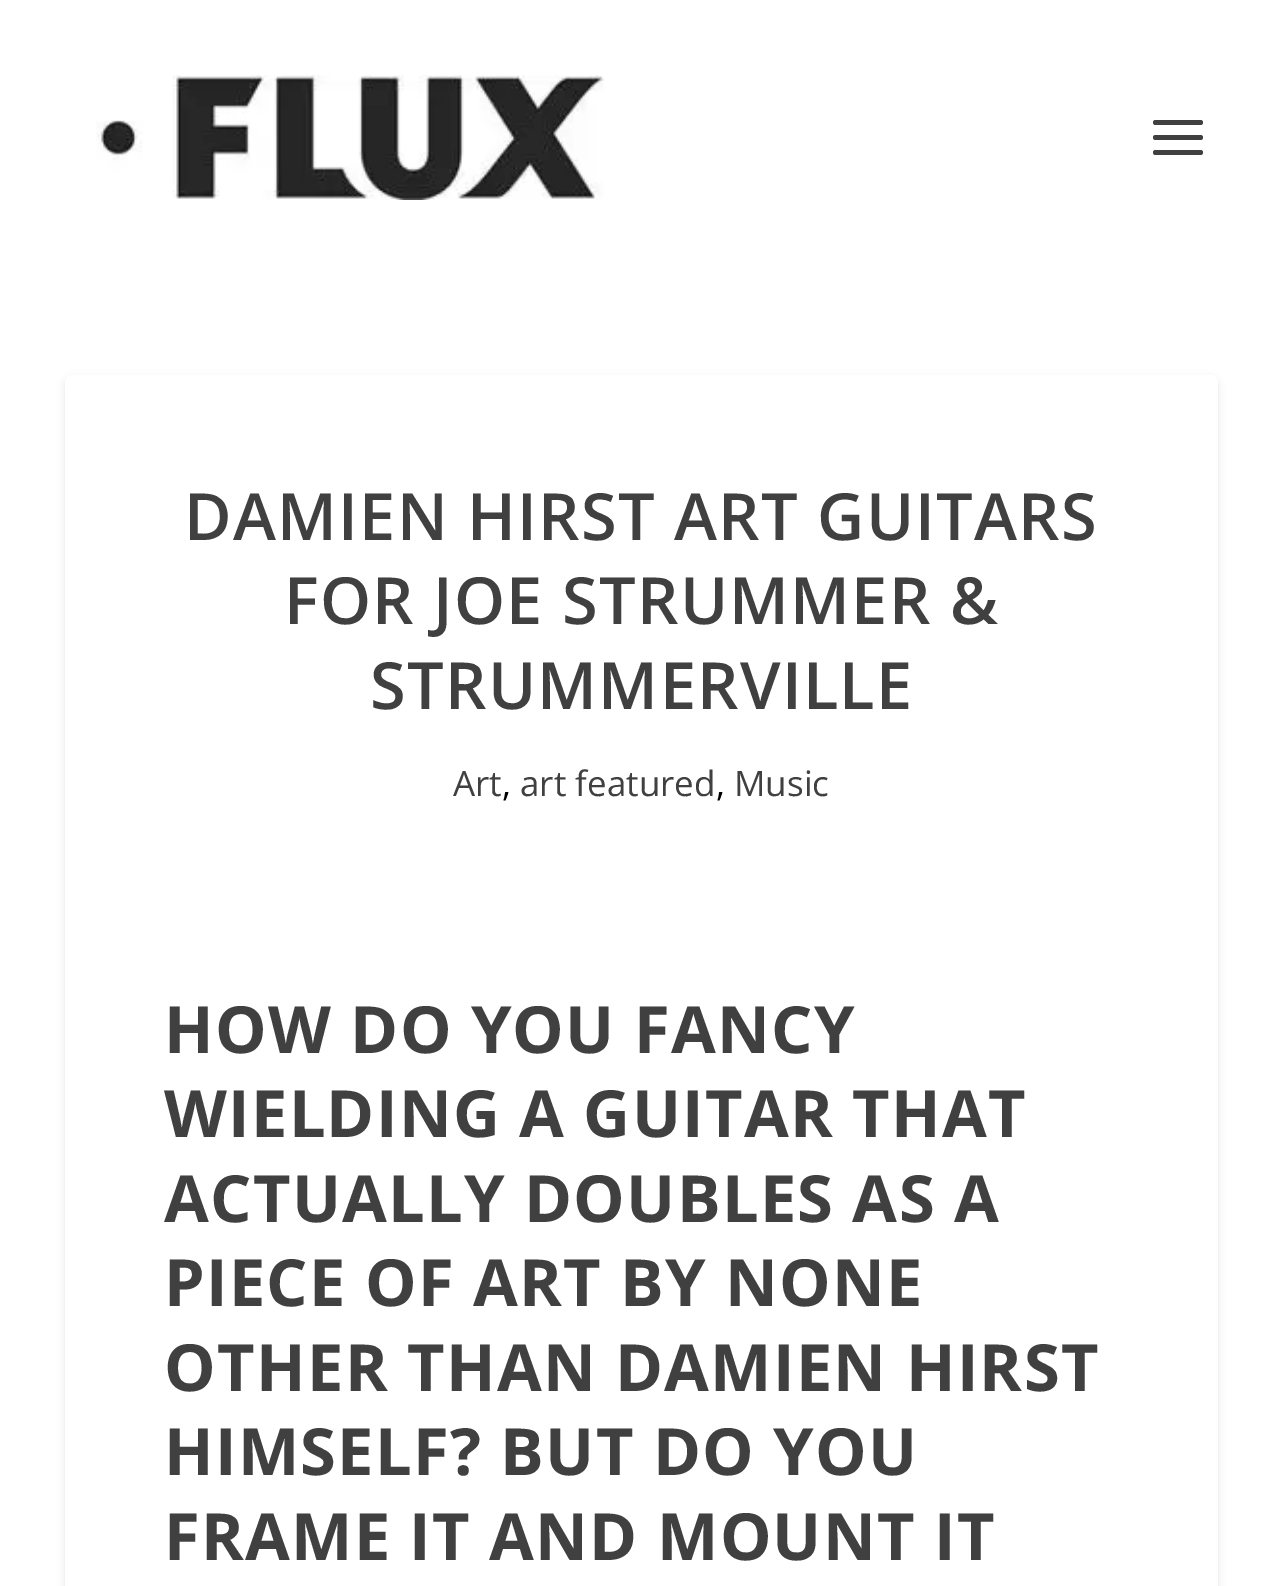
%!PS-Adobe-3.0
%%BoundingBox: 0 0 1281 1586
%%LanguageLevel: 3
%%Pages: 1
%%EndComments
%%BeginProlog
/setalpha { dup .setfillconstantalpha .setstrokeconstantalpha } def
/rrect { 5 dict begin { /r /h /w /y /x } { exch def } forall
  x r add y moveto x w add y 2 copy h add r arct x w add y h add x 1 index r arct
  x y h add x y r arct x y 2 copy exch w add exch r arct closepath end } def
/softshadow { 12 dict begin { /a /b /q /h /w /y /x } { exch def } forall gsave /was 0 def
  9 -2 -9 { dup b mul 4 div /e exch def 1 sub .425 mul 2.718 exch exp 1 add a .99 .min exch div /now exch def
    1 1 now sub 1 was sub div sub setalpha /was now def
    w h .min e 2 mul add 0 gt { x e sub y e sub w e 2 mul add h e 2 mul add
      q e add b .6 mul add w h .min 2 div e add .min 0 .max rrect fill } if } for grestore end } def
/drawimage { 5 dict begin { /h /w /y /x /name } { exch def } forall
  gsave x y translate w h scale
  w h 8 [w 0 0 h 0 0] name (r) file false 3 colorimage grestore end } def
%%EndProlog
%%BeginSetup
<< /PageSize [1281 1586] /PageUsesTransparency true >> setpagedevice
%%EndSetup
%%Page: 1 1
0 .pushpdf14devicefilter
0 1586 translate 1 -1 scale
4 setmiterlimit
1 setgray
0 0 1281 1586 rectfill
(images/1.raw) 96 75 508 125 drawimage
0.251 setgray
1153 120 50 5 2.5 rrect fill
1153 135 50 5 2.5 rrect fill
1153 150 50 5 2.5 rrect fill
0 setgray
65 378 1153 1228 8 4 0.1 softshadow
1 setgray
65 375 1153 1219 8 rrect fill
/OpenSans-SemiBold [65 0 0 -65 0 0] selectfont
0.251 setgray
184 540 moveto 1.25 0 (DAMIEN HIRST ART GUITARS) ashow
284 624 moveto 1.25 0 (FOR JOE STRUMMER &) ashow
370 709 moveto 1.25 0 (STRUMMERVILLE) ashow
/OpenSans-Regular [35 0 0 -35 0 0] selectfont
453 796 moveto (Art) show
0 setgray
502 796 moveto (,) show
0.251 setgray
520 796 moveto (art featured) show
0 setgray
716 796 moveto (,) show
0.251 setgray
734 796 moveto (Music) show
/OpenSans-Bold [65 0 0 -65 0 0] selectfont
164 1053 moveto 1.25 0 (HOW DO YOU FANCY) ashow
164 1137 moveto 1.25 0 (WIELDING A GUITAR THAT) ashow
164 1222 moveto 1.25 0 (ACTUALLY DOUBLES AS A) ashow
164 1306 moveto 1.25 0 (PIECE OF ART BY NONE) ashow
164 1391 moveto 1.25 0 (OTHER THAN DAMIEN HIRST) ashow
164 1475 moveto 1.25 0 (HIMSELF? BUT DO YOU) ashow
164 1560 moveto 1.25 0 (FRAME IT AND MOUNT IT) ashow
.poppdf14devicefilter showpage
%%EOF
